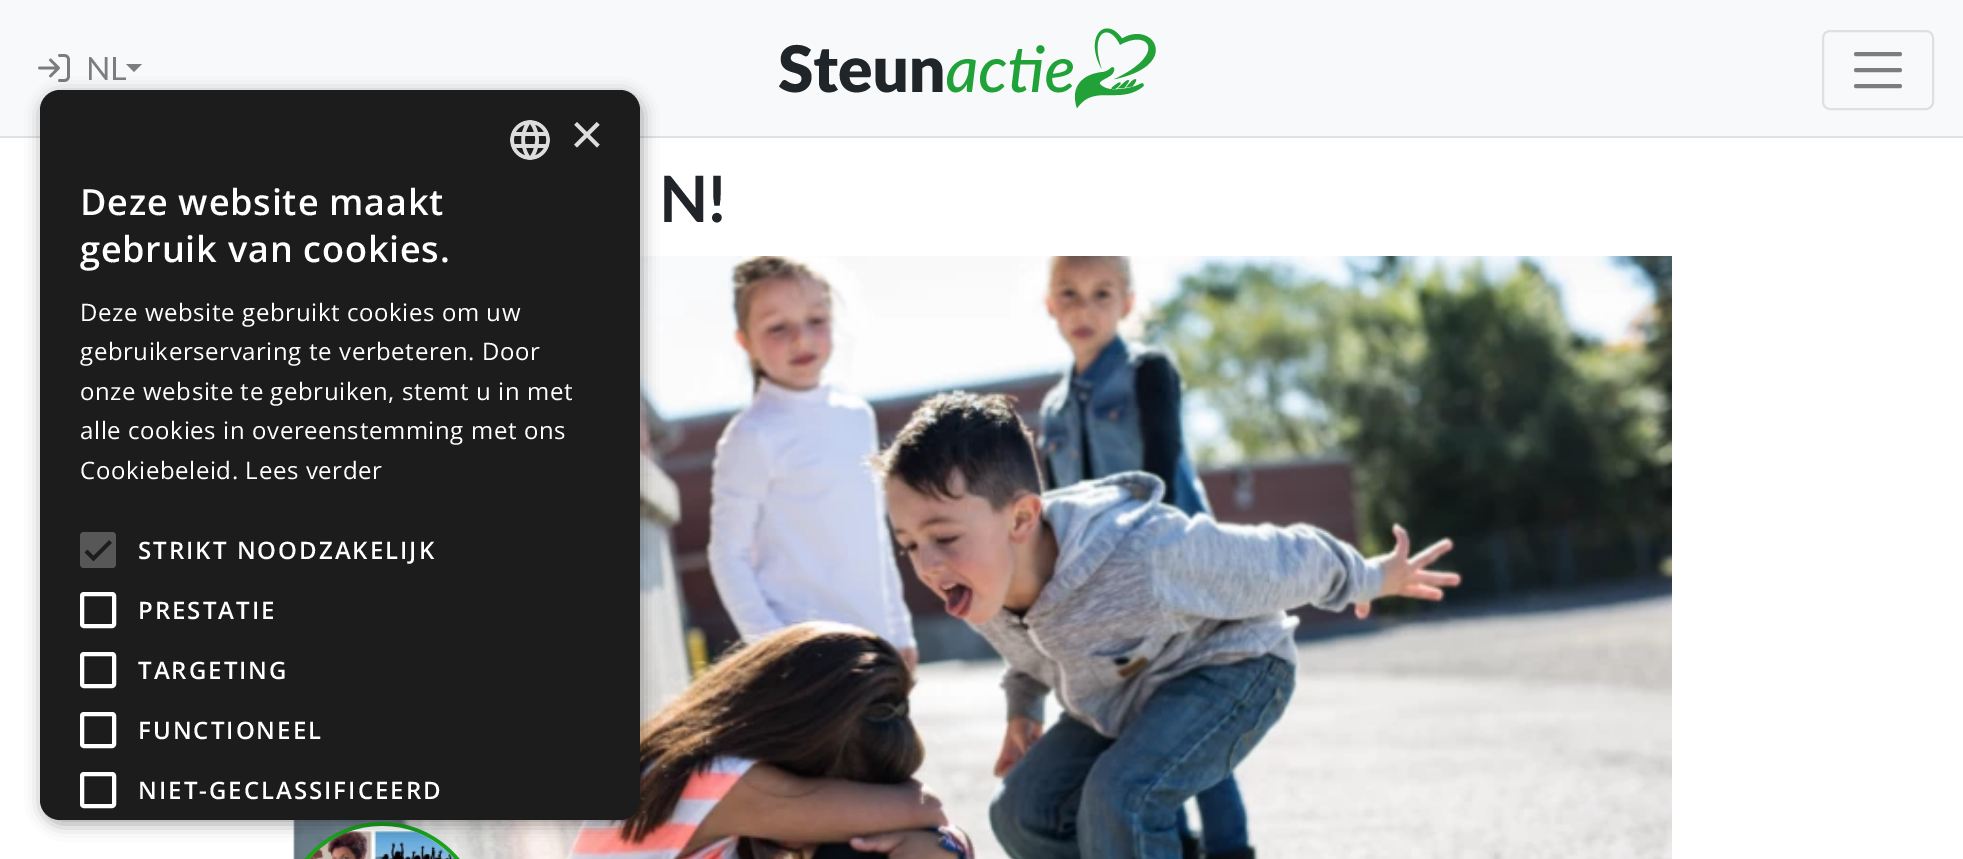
%!PS-Adobe-3.0
%%BoundingBox: 0 0 1963 859
%%LanguageLevel: 3
%%Pages: 1
%%EndComments
%%BeginProlog
/setalpha { dup .setfillconstantalpha .setstrokeconstantalpha } def
/rrect { 5 dict begin { /r /h /w /y /x } { exch def } forall
  x r add y moveto x w add y 2 copy h add r arct x w add y h add x 1 index r arct
  x y h add x y r arct x y 2 copy exch w add exch r arct closepath end } def
/softshadow { 12 dict begin { /a /b /q /h /w /y /x } { exch def } forall gsave /was 0 def
  9 -2 -9 { dup b mul 4 div /e exch def 1 sub .425 mul 2.718 exch exp 1 add a .99 .min exch div /now exch def
    1 1 now sub 1 was sub div sub setalpha /was now def
    w h .min e 2 mul add 0 gt { x e sub y e sub w e 2 mul add h e 2 mul add
      q e add b .6 mul add w h .min 2 div e add .min 0 .max rrect fill } if } for grestore end } def
/drawimage { 5 dict begin { /h /w /y /x /name } { exch def } forall
  gsave x y translate w h scale
  w h 8 [w 0 0 h 0 0] name (r) file false 3 colorimage grestore end } def
%%EndProlog
%%BeginSetup
<< /PageSize [1963 859] /PageUsesTransparency true >> setpagedevice
%%EndSetup
%%Page: 1 1
0 .pushpdf14devicefilter
0 859 translate 1 -1 scale
4 setmiterlimit
1 setgray
0 0 1963 859 rectfill
0.973 0.976 0.98 setrgbcolor
0 0 1963 136 rectfill
0.871 0.886 0.902 setrgbcolor
0 136 1963 2 rectfill
(images/1.raw) 38 54 32 28 drawimage
0.486 0.49 0.49 setrgbcolor
newpath 126 64 moveto 142 64 lineto 134 72 lineto closepath fill
(images/2.raw) 779 28 377 81 drawimage
0.875 0.878 0.882 setrgbcolor
2 setlinewidth
1823 31 110 78 7 rrect stroke
0.486 0.49 0.49 setrgbcolor
4 setlinewidth
1 setlinecap
newpath 1856 54 moveto 1900 54 lineto 1856 70 moveto 1900 70 lineto 1856 86 moveto 1900 86 lineto stroke
(images/4.raw) 292 256 1380 603 drawimage
0.102 0.635 0.11 setrgbcolor
0 setlinecap
284 824 196 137 98 rrect stroke
(images/5.raw) 309 826 146 33 drawimage
0 setgray
42 94 600 730 20 8 0.35 softshadow
0.11 setgray
40 90 600 730 20 rrect fill
(images/3.raw) 510 120 40 40 drawimage
0.341 setgray
80 532 36 36 4 rrect fill
0.11 setgray
3.6 setlinewidth
newpath 86 551 moveto 93.5 558.5 lineto 110.5 541.5 lineto stroke
1 setgray
4 setlinewidth
82 594 32 32 2 rrect stroke
82 654 32 32 2 rrect stroke
82 714 32 32 2 rrect stroke
82 774 32 32 2 rrect stroke
/Lato-Regular [32 0 0 -32 0 0] selectfont
0.486 0.49 0.49 setrgbcolor
86 80 moveto (NL) show
/LiberationSans-Regular [58 0 0 -58 0 0] selectfont
0.867 setgray
570 154 moveto (×) show
/OpenSans-SemiBold [36 0 0 -36 0 0] selectfont
1 setgray
80 215 moveto 0.8 0 (Deze website maakt) ashow
80 262 moveto 0.8 0 (gebruik van cookies.) ashow
/OpenSans-Regular [24 0 0 -24 0 0] selectfont
80 321 moveto 0.6 0 (Deze website gebruikt cookies om uw) ashow
80 360 moveto 0.6 0 (gebruikerservaring te verbeteren. Door) ashow
80 400 moveto 0.6 0 (onze website te gebruiken, stemt u in met) ashow
80 439 moveto 0.6 0 (alle cookies in overeenstemming met ons) ashow
80 479 moveto 0.6 0 (Cookiebeleid. Lees verder) ashow
/OpenSans-SemiBold [24 0 0 -24 0 0] selectfont
138 559 moveto 2 0 (STRIKT NOODZAKELIJK) ashow
138 619 moveto 2 0 (PRESTATIE) ashow
138 679 moveto 2 0 (TARGETING) ashow
138 739 moveto 2 0 (FUNCTIONEEL) ashow
138 799 moveto 2 0 (NIET-GECLASSIFICEERD) ashow
/Lato-Bold [64 0 0 -64 0 0] selectfont
0.129 0.145 0.161 setrgbcolor
659 222 moveto (N!) show
.poppdf14devicefilter showpage
%%EOF
